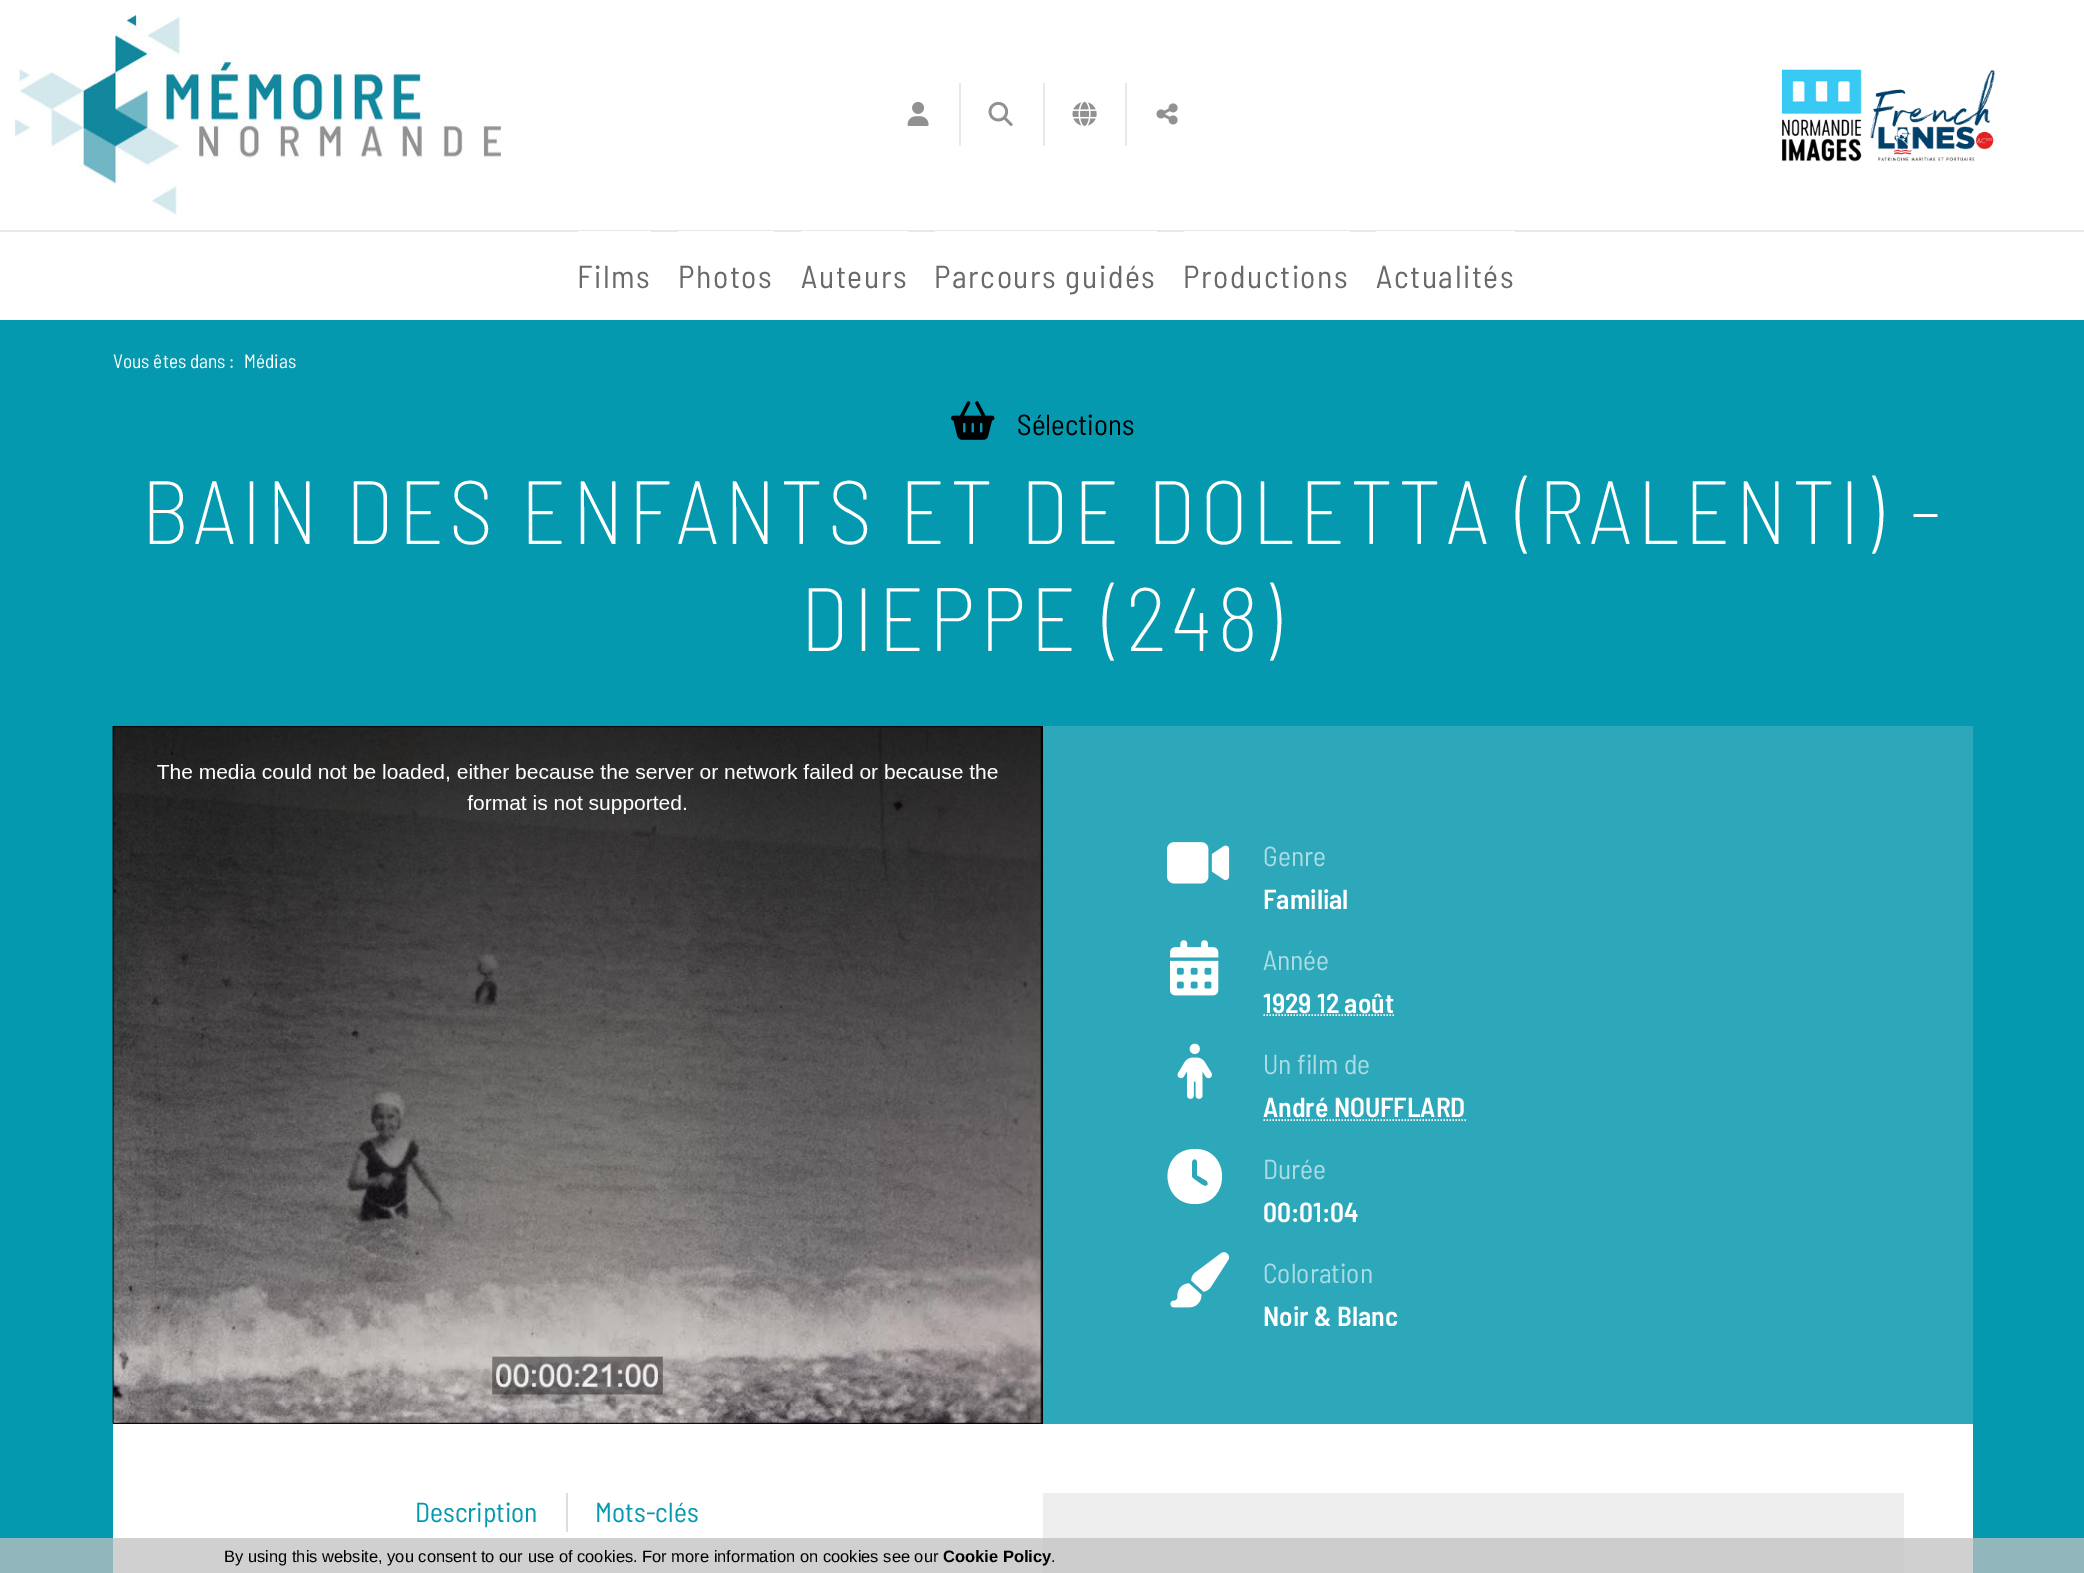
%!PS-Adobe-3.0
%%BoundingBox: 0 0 2084 1573
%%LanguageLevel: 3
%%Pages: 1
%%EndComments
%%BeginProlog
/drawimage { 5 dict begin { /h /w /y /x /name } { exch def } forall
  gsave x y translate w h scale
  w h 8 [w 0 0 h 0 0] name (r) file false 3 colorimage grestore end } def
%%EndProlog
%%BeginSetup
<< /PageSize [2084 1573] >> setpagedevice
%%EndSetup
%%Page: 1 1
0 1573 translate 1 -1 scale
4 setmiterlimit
1 setgray
0 0 2084 1573 rectfill
(images/1.raw) 15 15 486 200 drawimage
(images/2.raw) 907 101 22 25 drawimage
0.91 setgray
959 83 2 63 rectfill
(images/3.raw) 988 101 25 25 drawimage
1043 83 2 63 rectfill
(images/4.raw) 1072 101 25 25 drawimage
1125 83 2 63 rectfill
(images/5.raw) 1156 103 22 22 drawimage
(images/6.raw) 1782 69 80 93 drawimage
(images/7.raw) 1870 69 125 93 drawimage
0 230 2084 2 rectfill
1 setgray
578 231 73 1 rectfill
678 231 96 1 rectfill
801 231 107 1 rectfill
935 231 222 1 rectfill
1184 231 166 1 rectfill
1376 231 139 1 rectfill
0.016 0.6 0.686 setrgbcolor
0 320 2084 1218 rectfill
0.569 0.714 0.737 setrgbcolor
0 1538 2084 35 rectfill
(images/8.raw) 951 401 44 39 drawimage
0.176 0.659 0.729 setrgbcolor
1043 726 930 698 rectfill
0 setgray
113 726 930 698 rectfill
(images/9.raw) 112 726 930 698 drawimage
(images/10.raw) 1167 842 63 42 drawimage
(images/11.raw) 1170 940 49 56 drawimage
1 setgray
1.5 setlinewidth
[1.5 1.5] 0 setdash
newpath 1263.5 1015 moveto 1394.5 1015 lineto stroke
(images/12.raw) 1177 1043 35 56 drawimage
newpath 1263.5 1120 moveto 1466.5 1120 lineto stroke
newpath 1195 1149 moveto 1231 1149 1231 1204 1195 1204 curveto 1159 1204 1158 1149 1195 1149 curveto closepath 1192 1162 moveto 1192 1177 lineto 1193 1179 1197 1181 1198 1182 curveto 1200 1183 1206 1189 1208 1184 curveto 1207 1181 lineto 1197 1175 lineto 1197 1161 lineto 1196 1158 1192 1159 1192 1162 curveto closepath fill
(images/13.raw) 1170 1252 60 56 drawimage
113 1424 1860 114 rectfill
0.816 setgray
113 1538 1860 35 rectfill
0.867 setgray
566 1493 2 39 rectfill
0.933 setgray
1043 1493 861 45 rectfill
0.8 setgray
1043 1538 861 35 rectfill
/BarlowSemiCondensed-Regular [31.75 0 0 -31.75 0 0] selectfont
0.412 setgray
577 288 moveto 1.6 0 (Films) ashow
678 288 moveto 1.6 0 (Photos) ashow
801 288 moveto 1.6 0 (Auteurs) ashow
934 288 moveto 1.6 0 (Parcours guidés) ashow
1183 288 moveto 1.6 0 (Productions) ashow
1376 288 moveto 1.6 0 (Actualités) ashow
/BarlowSemiCondensed-Regular [19.25 0 0 -19.25 0 0] selectfont
1 setgray
113 368 moveto (Vous êtes dans :) show
244 368 moveto (Médias) show
/BarlowSemiCondensed-Regular [29 0 0 -29 0 0] selectfont
0 setgray
1017 435 moveto (Sélections) show
/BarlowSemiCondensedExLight-ExtraLight [89.7 0 0 -89.7 0 0] selectfont
1 setgray
141 544 moveto 4.5 0 (BAIN DES ENFANTS ET DE DOLETTA \(RALENTI\) -) ashow
800 651 moveto 4.5 0 (DIEPPE \(248\)) ashow
/BarlowSemiCondensed-Regular [27.5 0 0 -27.5 0 0] selectfont
0.671 0.863 0.89 setrgbcolor
1263 866 moveto (Genre) show
/BarlowSemiCondensed-SemiBold [27.5 0 0 -27.5 0 0] selectfont
1 setgray
1263 909 moveto (Familial) show
/BarlowSemiCondensed-Regular [27.5 0 0 -27.5 0 0] selectfont
0.671 0.863 0.89 setrgbcolor
1263 970 moveto (Année) show
/BarlowSemiCondensed-SemiBold [27.5 0 0 -27.5 0 0] selectfont
1 setgray
1263 1013 moveto (1929 12 août) show
/BarlowSemiCondensed-Regular [27.5 0 0 -27.5 0 0] selectfont
0.671 0.863 0.89 setrgbcolor
1263 1074 moveto (Un film de) show
/BarlowSemiCondensed-SemiBold [27.5 0 0 -27.5 0 0] selectfont
1 setgray
1263 1117 moveto (André NOUFFLARD) show
/BarlowSemiCondensed-Regular [27.5 0 0 -27.5 0 0] selectfont
0.671 0.863 0.89 setrgbcolor
1263 1179 moveto (Durée) show
/BarlowSemiCondensed-SemiBold [27.5 0 0 -27.5 0 0] selectfont
1 setgray
1263 1222 moveto (00:01:04) show
/BarlowSemiCondensed-Regular [27.5 0 0 -27.5 0 0] selectfont
0.671 0.863 0.89 setrgbcolor
1263 1283 moveto (Coloration) show
gsave
1139 822 738 504 rectclip
/BarlowSemiCondensed-SemiBold [27.5 0 0 -27.5 0 0] selectfont
1 setgray
1263 1326 moveto (Noir & Blanc) show
grestore
0.016 0.6 0.686 setrgbcolor
415 1522 moveto (Description) show
595 1522 moveto (Mots-clés) show
/LiberationSans-Regular [16.5 0 0 -16.5 0 0] selectfont
0 setgray
224 1562 moveto (By using this website, you consent to our use of cookies. For more information on cookies see our) show
/LiberationSans-Bold [16.5 0 0 -16.5 0 0] selectfont
943 1562 moveto (Cookie Policy) show
/LiberationSans-Regular [16.5 0 0 -16.5 0 0] selectfont
1051 1562 moveto (.) show
showpage
%%EOF
